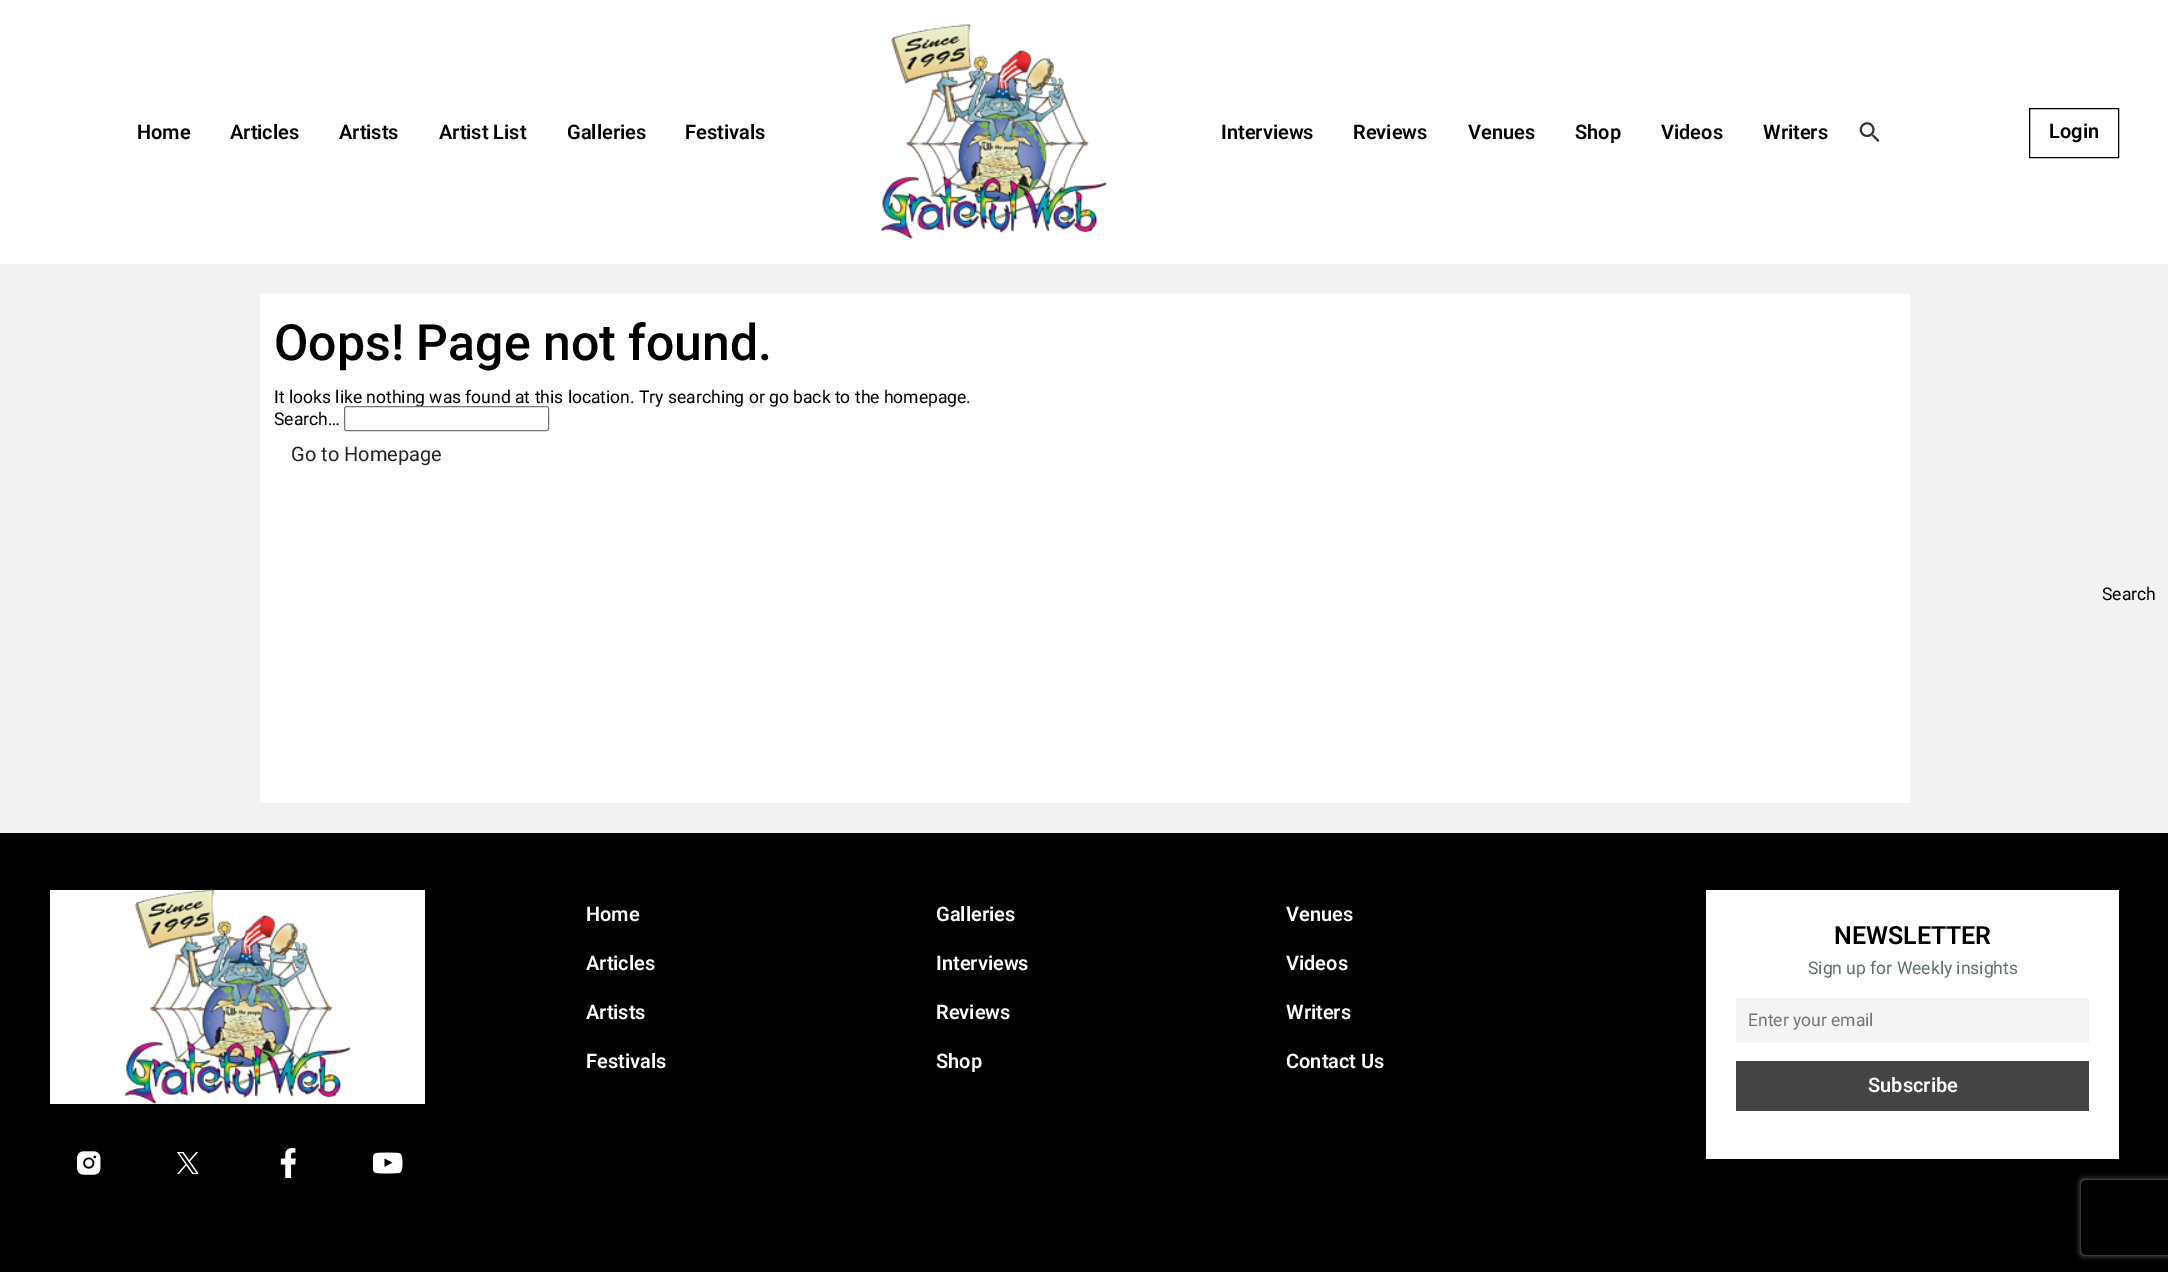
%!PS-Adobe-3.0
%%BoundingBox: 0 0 2168 1272
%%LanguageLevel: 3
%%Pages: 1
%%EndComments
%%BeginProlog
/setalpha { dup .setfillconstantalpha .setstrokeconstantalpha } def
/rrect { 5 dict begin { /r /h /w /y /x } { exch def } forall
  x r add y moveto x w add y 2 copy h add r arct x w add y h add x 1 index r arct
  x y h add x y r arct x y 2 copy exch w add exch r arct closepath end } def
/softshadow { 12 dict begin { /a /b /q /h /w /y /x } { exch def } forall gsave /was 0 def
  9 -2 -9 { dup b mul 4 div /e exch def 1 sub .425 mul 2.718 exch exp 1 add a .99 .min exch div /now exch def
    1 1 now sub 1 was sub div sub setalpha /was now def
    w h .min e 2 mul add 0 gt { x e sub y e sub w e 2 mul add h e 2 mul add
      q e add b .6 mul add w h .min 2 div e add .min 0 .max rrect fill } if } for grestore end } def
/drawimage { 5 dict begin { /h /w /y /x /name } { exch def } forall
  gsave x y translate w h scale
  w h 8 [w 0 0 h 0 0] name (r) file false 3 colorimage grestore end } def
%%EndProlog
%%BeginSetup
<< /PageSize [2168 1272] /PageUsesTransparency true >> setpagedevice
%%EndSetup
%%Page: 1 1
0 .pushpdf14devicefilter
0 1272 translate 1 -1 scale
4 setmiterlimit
0.949 setgray
0 0 2168 1272 rectfill
1 setgray
0 0 2168 264 rectfill
(images/1.raw) 881 24 226 215 drawimage
(images/2.raw) 1859 122 21 20 drawimage
0 setgray
2029.5 108.5 89 49 rectstroke
1 setgray
260 294 1650 509 rectfill
0 setgray
0 833 2168 439 rectfill
1 setgray
50 890 375 214 rectfill
(images/3.raw) 124 889 227 215 drawimage
(images/4.raw) 77 1151 24 24 drawimage
(images/5.raw) 177 1152 22 22 drawimage
(images/6.raw) 280 1148 16 30 drawimage
(images/7.raw) 373 1152 30 22 drawimage
1706 890 413 269 rectfill
0.957 setgray
1736 998 353 45 rectfill
0.267 setgray
1736 1061 353 50 rectfill
gsave
newpath 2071 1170 moveto 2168 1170 lineto 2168 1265 lineto 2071 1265 lineto closepath 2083.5 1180 moveto 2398.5 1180 lineto 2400 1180 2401 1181 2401 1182.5 curveto 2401 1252.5 lineto 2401 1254 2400 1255 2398.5 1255 curveto 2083.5 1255 lineto 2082 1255 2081 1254 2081 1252.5 curveto 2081 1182.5 lineto 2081 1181 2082 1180 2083.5 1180 curveto closepath eoclip newpath
0.502 setgray
2081 1180 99 75 2.5 3 1 softshadow
grestore
/Roboto-SemiBold [20 0 0 -20 0 0] selectfont
0 setgray
137 139 moveto (Home) show
230 139 moveto (Articles) show
339 139 moveto (Artists) show
439 139 moveto (Artist List) show
567 139 moveto (Galleries) show
685 139 moveto (Festivals) show
1221 139 moveto (Interviews) show
1353 139 moveto (Reviews) show
1468 139 moveto (Venues) show
1575 139 moveto (Shop) show
1661 139 moveto (Videos) show
1763 139 moveto (Writers) show
2049 138 moveto (Login) show
/Roboto-Medium [50 0 0 -50 0 0] selectfont
274 360 moveto (Oops! Page not found.) show
/Roboto-Regular [17.5 0 0 -17.5 0 0] selectfont
274 403 moveto (It looks like nothing was found at this location. Try searching or go back to the homepage.) show
274 425 moveto (Search…) show
1 setgray
344.5 406.5 204 24 2 rrect gsave fill grestore
0.463 setgray
stroke
0 setgray
2102 600 moveto (Search) show
/Roboto-Regular [20 0 0 -20 0 0] selectfont
0.129 0.145 0.161 setrgbcolor
291 461 moveto (Go to Homepage) show
/Roboto-SemiBold [20 0 0 -20 0 0] selectfont
1 setgray
586 921 moveto (Home) show
586 970 moveto (Articles) show
586 1019 moveto (Artists) show
586 1068 moveto (Festivals) show
936 921 moveto (Galleries) show
936 970 moveto (Interviews) show
936 1019 moveto (Reviews) show
936 1068 moveto (Shop) show
1286 921 moveto (Venues) show
1286 970 moveto (Videos) show
1286 1019 moveto (Writers) show
1286 1068 moveto (Contact Us) show
/Roboto-SemiBold [25 0 0 -25 0 0] selectfont
0 setgray
1834 944 moveto (NEWSLETTER) show
/Roboto-Regular [17.5 0 0 -17.5 0 0] selectfont
0.365 0.447 0.427 setrgbcolor
1808 974 moveto (Sign up for Weekly insights) show
0.459 setgray
1748 1026 moveto (Enter your email) show
/Roboto-SemiBold [20 0 0 -20 0 0] selectfont
1 setgray
1868 1092 moveto (Subscribe) show
.poppdf14devicefilter showpage
%%EOF
